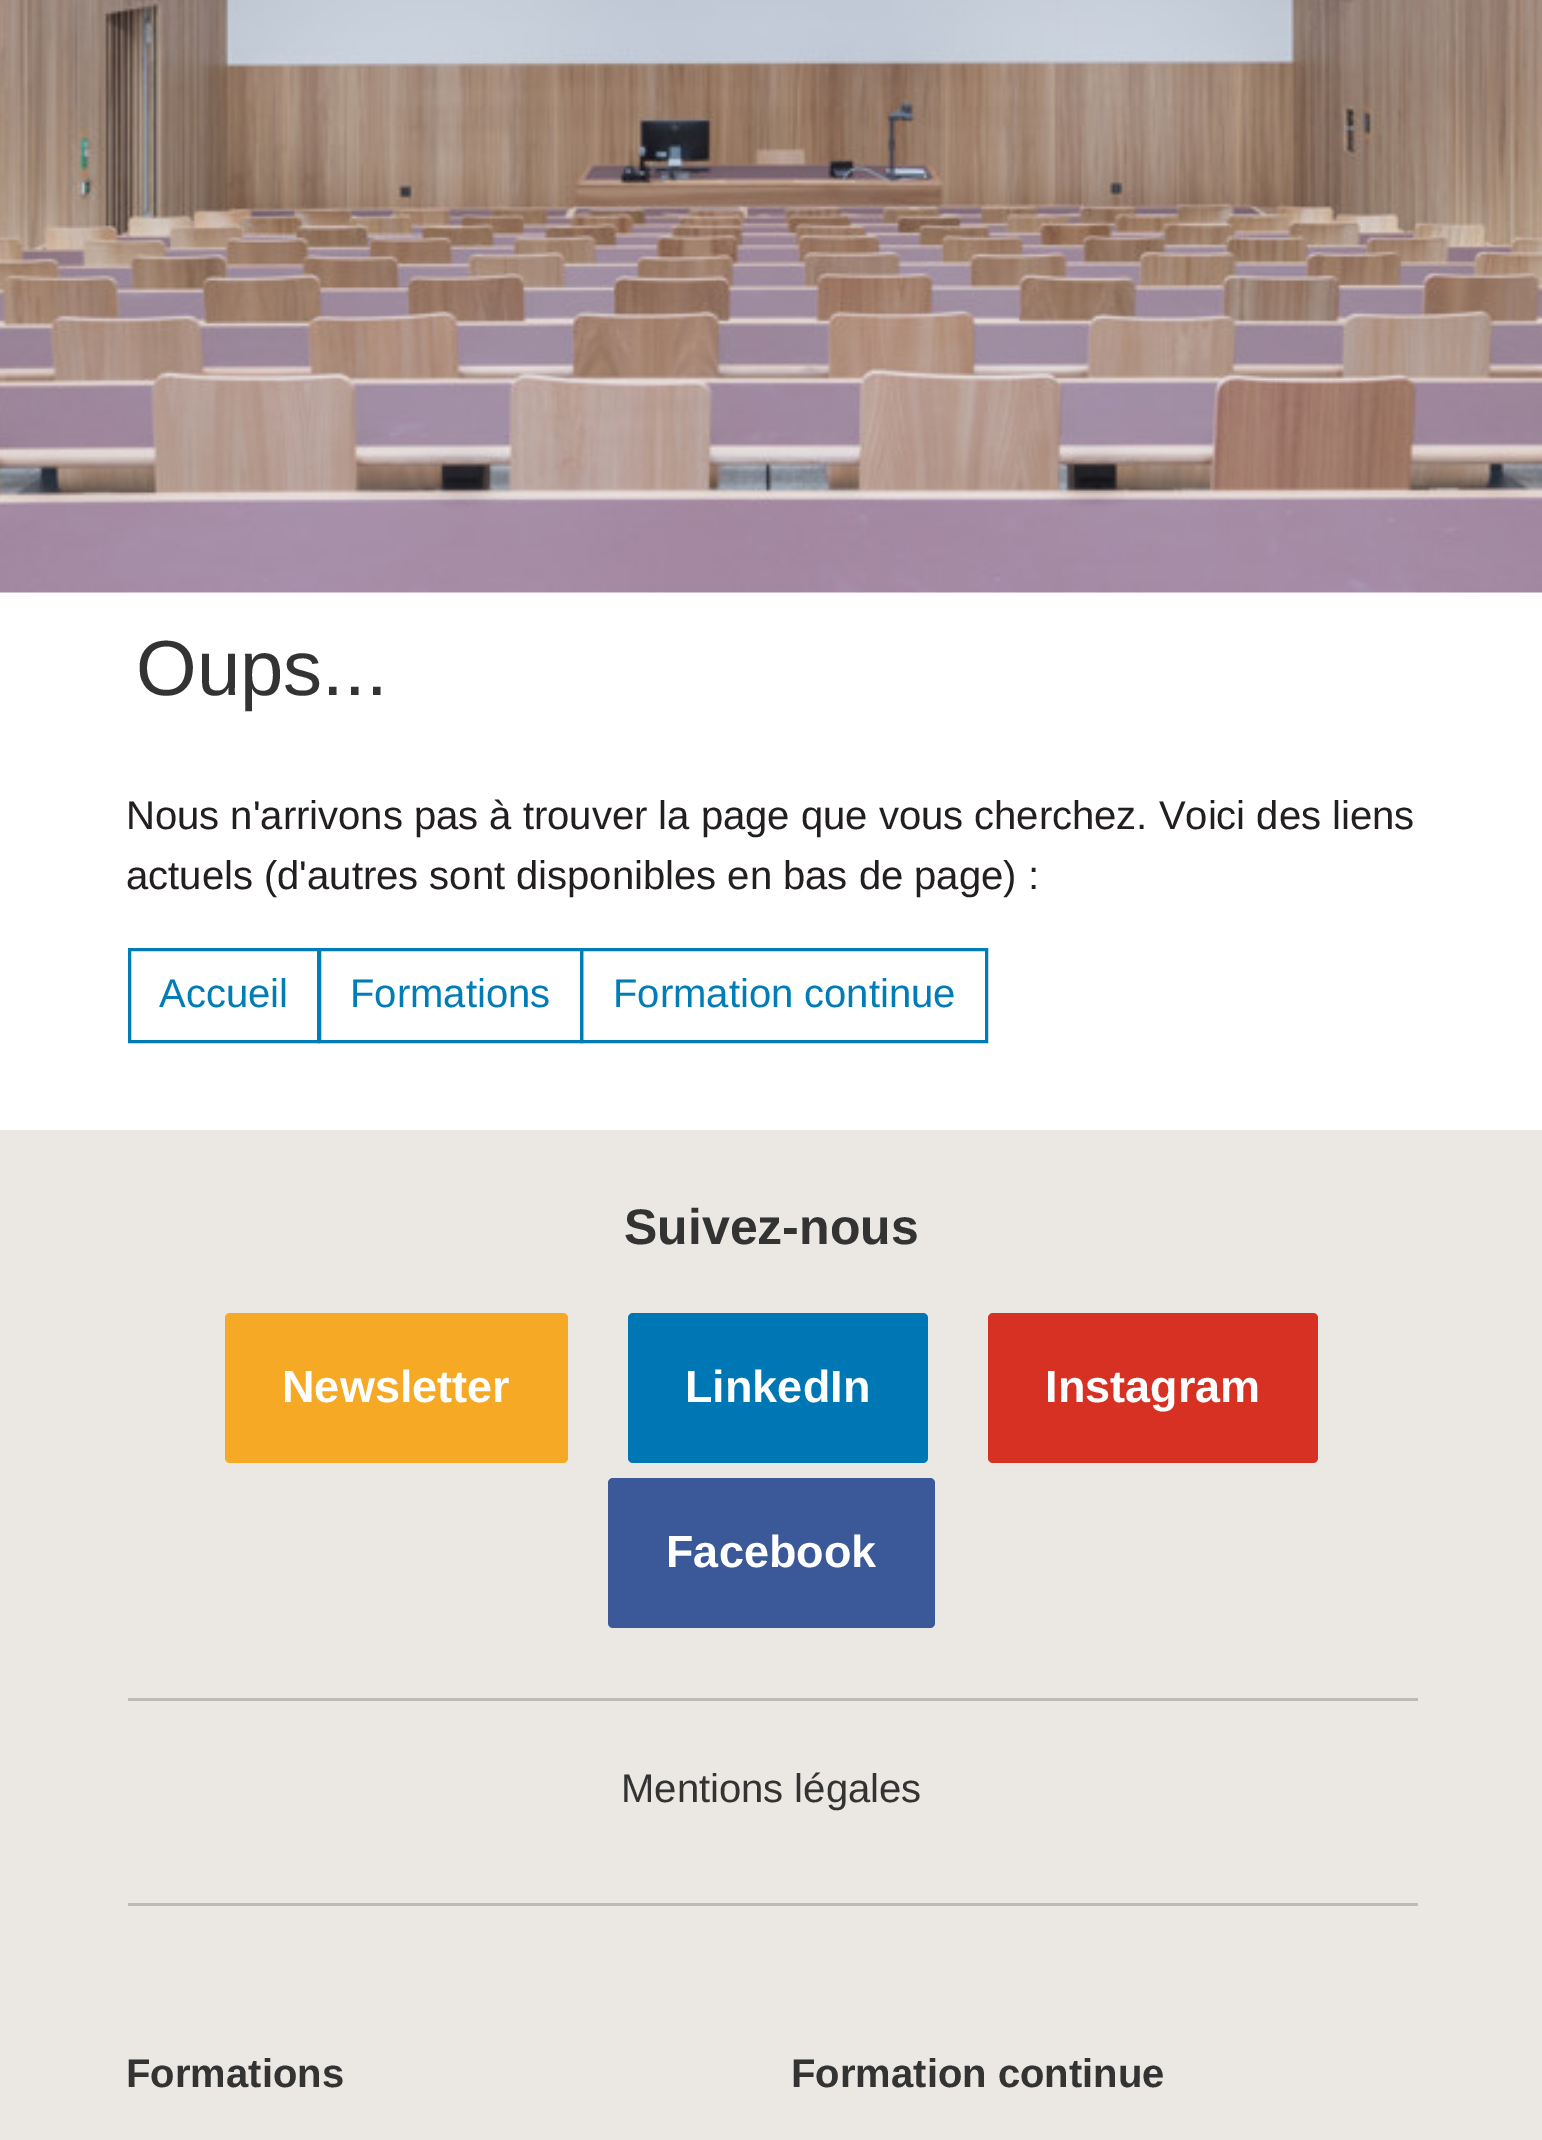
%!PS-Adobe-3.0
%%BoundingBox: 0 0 1542 2140
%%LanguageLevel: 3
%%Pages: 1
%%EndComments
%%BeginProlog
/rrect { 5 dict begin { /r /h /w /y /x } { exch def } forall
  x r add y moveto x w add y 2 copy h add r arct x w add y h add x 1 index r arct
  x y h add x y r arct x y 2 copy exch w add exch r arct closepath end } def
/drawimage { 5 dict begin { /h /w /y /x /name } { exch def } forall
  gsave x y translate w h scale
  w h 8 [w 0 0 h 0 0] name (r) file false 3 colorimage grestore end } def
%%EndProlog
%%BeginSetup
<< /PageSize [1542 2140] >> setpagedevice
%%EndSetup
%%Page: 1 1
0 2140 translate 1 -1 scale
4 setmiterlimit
1 setgray
0 0 1542 2140 rectfill
(images/1.raw) 0 0 1542 593 drawimage
0 0.486 0.718 setrgbcolor
3 setlinewidth
129.5 949.5 189 92 rectstroke
319.5 949.5 262 92 rectstroke
581.5 949.5 405 92 rectstroke
0.922 0.91 0.89 setrgbcolor
0 1130 1542 1010 rectfill
0.965 0.663 0.141 setrgbcolor
225 1313 343 150 5 rrect fill
0 0.467 0.71 setrgbcolor
628 1313 300 150 5 rrect fill
0.839 0.192 0.133 setrgbcolor
988 1313 330 150 5 rrect fill
0.231 0.349 0.596 setrgbcolor
608 1478 327 150 5 rrect fill
0.741 0.733 0.718 setrgbcolor
128 1698 1290 3 rectfill
128 1903 1290 3 rectfill
/LiberationSans-Regular [78 0 0 -78 0 0] selectfont
0.2 setgray
136 695 moveto (Oups...) show
/LiberationSans-Regular [40 0 0 -40 0 0] selectfont
0.137 0.122 0.129 setrgbcolor
126 829 moveto (Nous n'arrivons pas à trouver la page que vous cherchez. Voici des liens) show
126 889 moveto (actuels \(d'autres sont disponibles en bas de page\) :) show
0 0.486 0.718 setrgbcolor
159 1007 moveto (Accueil) show
350 1007 moveto (Formations) show
613 1007 moveto (Formation continue) show
/LiberationSans-Bold [50 0 0 -50 0 0] selectfont
0.2 setgray
624 1244 moveto (Suivez-nous) show
/LiberationSans-Bold [45 0 0 -45 0 0] selectfont
1 setgray
282 1402 moveto (Newsletter) show
685 1402 moveto (LinkedIn) show
1045 1402 moveto (Instagram) show
666 1567 moveto (Facebook) show
/LiberationSans-Regular [40 0 0 -40 0 0] selectfont
0.2 setgray
621 1802 moveto (Mentions légales) show
/LiberationSans-Bold [40 0 0 -40 0 0] selectfont
126 2087 moveto (Formations) show
791 2087 moveto (Formation continue) show
showpage
%%EOF
